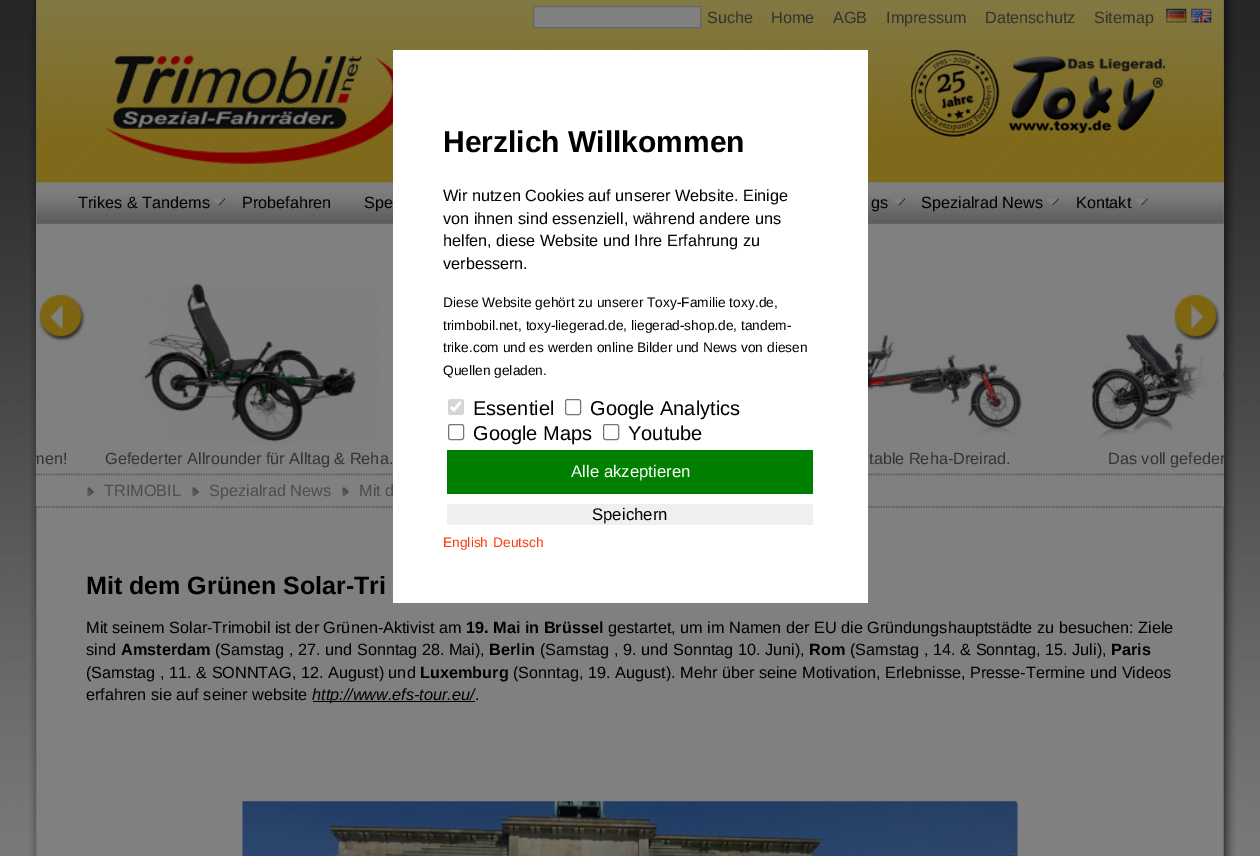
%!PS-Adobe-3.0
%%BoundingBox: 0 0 1260 856
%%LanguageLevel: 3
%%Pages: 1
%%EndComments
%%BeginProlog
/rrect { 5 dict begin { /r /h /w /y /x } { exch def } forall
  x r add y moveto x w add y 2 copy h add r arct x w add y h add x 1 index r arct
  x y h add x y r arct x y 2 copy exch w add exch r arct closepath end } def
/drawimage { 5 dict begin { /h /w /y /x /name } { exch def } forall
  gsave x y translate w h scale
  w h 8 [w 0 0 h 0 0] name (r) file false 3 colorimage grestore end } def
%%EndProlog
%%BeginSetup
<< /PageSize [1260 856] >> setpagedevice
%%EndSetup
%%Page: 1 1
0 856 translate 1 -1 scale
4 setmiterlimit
1 setgray
0 0 1260 856 rectfill
(images/1.raw) 0 0 1260 856 drawimage
(images/2.raw) 29 0 1207 856 drawimage
(images/3.raw) 36 0 1188 183 drawimage
0.502 setgray
newpath 533.5 6.5 moveto 700.5 6.5 lineto 700.5 27.5 lineto 533.5 27.5 lineto closepath gsave fill grestore
0.4 setgray
stroke
(images/4.raw) 1166 8 21 15 drawimage
(images/5.raw) 1191 8 21 15 drawimage
(images/6.raw) 105 54 288 110 drawimage
(images/7.raw) 911 50 254 87 drawimage
0.502 setgray
36 183 1188 325 rectfill
(images/8.raw) 36 182 1188 42 drawimage
(images/9.raw) 212 198 13 8 drawimage
(images/9.raw) 892 198 13 8 drawimage
(images/10.raw) 1046 198 13 8 drawimage
(images/11.raw) 1135 198 13 8 drawimage
(images/12.raw) 39 294 46 47 drawimage
(images/17.raw) 1092 333 132 106 drawimage
(images/13.raw) 1174 294 46 47 drawimage
(images/14.raw) 1175 343 49 58 drawimage
(images/15.raw) 139 283 241 161 drawimage
(images/16.raw) 868 299 155 139 drawimage
gsave
36 0 1188 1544 rectclip
0.302 setgray
1.2 setlinewidth
[1.25 1.25] 0 setdash
newpath 36 474.5 moveto 1249 474.5 lineto stroke
newpath 36 507 moveto 1249 507 lineto stroke
grestore
(images/18.raw) 87 487 7 10 drawimage
(images/18.raw) 192 487 7 10 drawimage
(images/18.raw) 342 487 7 10 drawimage
0 setgray
313 701 162 1 rectfill
(images/19.raw) 242 801 776 55 drawimage
/LiberationSans-Regular [16.25 0 0 -16.25 0 0] selectfont
0.2 setgray
707 23 moveto (Suche) show
771 23 moveto (Home) show
833 23 moveto (AGB) show
886 23 moveto (Impressum) show
985 23 moveto (Datenschutz) show
1094 23 moveto (Sitemap) show
0 setgray
78 208 moveto (Trikes & Tandems) show
242 208 moveto (Probefahren) show
364 208 moveto (Spe) show
871 208 moveto (gs) show
921 208 moveto (Spezialrad News) show
1076 208 moveto (Kontakt) show
gsave
36 224 50 250 rectclip
0.2 setgray
31 464 moveto (men!) show
grestore
0.2 setgray
105 464 moveto (Gefederter Allrounder für Alltag & Reha.) show
869 464 moveto (table Reha-Dreirad.) show
1108 464 moveto (Das voll gefeder) show
0.302 setgray
104 496 moveto (TRIMOBIL) show
209 496 moveto (Spezialrad News) show
359 496 moveto (Mit d) show
/LiberationSans-Bold [25 0 0 -25 0 0] selectfont
0 setgray
86 594 moveto (Mit dem Grünen Solar-Tri) show
/LiberationSans-Regular [16.25 0 0 -16.25 0 0] selectfont
86 633 moveto (Mit seinem Solar-Trimobil ist der Grünen-Aktivist am) show
/LiberationSans-Bold [16.25 0 0 -16.25 0 0] selectfont
466 633 moveto (19. Mai in Brüssel) show
/LiberationSans-Regular [16.25 0 0 -16.25 0 0] selectfont
608 633 moveto (gestartet, um im Namen der EU die Gründungshauptstädte zu besuchen: Ziele) show
86 655 moveto (sind) show
/LiberationSans-Bold [16.25 0 0 -16.25 0 0] selectfont
121 655 moveto (Amsterdam) show
/LiberationSans-Regular [16.25 0 0 -16.25 0 0] selectfont
215 655 moveto (\(Samstag , 27. und Sonntag 28. Mai\),) show
/LiberationSans-Bold [16.25 0 0 -16.25 0 0] selectfont
489 655 moveto (Berlin) show
/LiberationSans-Regular [16.25 0 0 -16.25 0 0] selectfont
540 655 moveto (\(Samstag , 9. und Sonntag 10. Juni\),) show
/LiberationSans-Bold [16.25 0 0 -16.25 0 0] selectfont
809 655 moveto (Rom) show
/LiberationSans-Regular [16.25 0 0 -16.25 0 0] selectfont
850 655 moveto (\(Samstag , 14. & Sonntag, 15. Juli\),) show
/LiberationSans-Bold [16.25 0 0 -16.25 0 0] selectfont
1111 655 moveto (Paris) show
/LiberationSans-Regular [16.25 0 0 -16.25 0 0] selectfont
86 678 moveto (\(Samstag , 11. & SONNTAG, 12. August\) und) show
/LiberationSans-Bold [16.25 0 0 -16.25 0 0] selectfont
420 678 moveto (Luxemburg) show
/LiberationSans-Regular [16.25 0 0 -16.25 0 0] selectfont
513 678 moveto (\(Sonntag, 19. August\). Mehr über seine Motivation, Erlebnisse, Presse-Termine und Videos) show
86 700 moveto (erfahren sie auf seiner website) show
/LiberationSans-Italic [16.25 0 0 -16.25 0 0] selectfont
312 700 moveto (http://www.efs-tour.eu/) show
/LiberationSans-Regular [16.25 0 0 -16.25 0 0] selectfont
475 700 moveto (.) show
1 setgray
393 50 475 553 rectfill
/LiberationSans-Bold [30 0 0 -30 0 0] selectfont
0 setgray
443 152 moveto (Herzlich Willkommen) show
/LiberationSans-Regular [16.25 0 0 -16.25 0 0] selectfont
443 201 moveto (Wir nutzen Cookies auf unserer Website. Einige) show
443 224 moveto (von ihnen sind essenziell, während andere uns) show
443 246 moveto (helfen, diese Website und Ihre Erfahrung zu) show
443 269 moveto (verbessern.) show
/LiberationSans-Regular [13.75 0 0 -13.75 0 0] selectfont
443 307 moveto (Diese Website gehört zu unserer Toxy-Familie toxy.de,) show
443 330 moveto (trimbobil.net, toxy-liegerad.de, liegerad-shop.de, tandem-) show
443 352 moveto (trike.com und es werden online Bilder und News von diesen) show
443 375 moveto (Quellen geladen.) show
0.839 setgray
448 399 16 16 2.5 rrect fill
1 setgray
2.6 setlinewidth
newpath 451 407 moveto 454 410 lineto 460.5 402 lineto stroke
/LiberationSans-Regular [20 0 0 -20 0 0] selectfont
0 setgray
473 415 moveto (Essentiel) show
0.463 setgray
1 setlinewidth
565.5 399.5 15 15 2 rrect stroke
0 setgray
590 415 moveto (Google Analytics) show
0.463 setgray
448.5 424.5 15 15 2 rrect stroke
0 setgray
473 440 moveto (Google Maps) show
0.463 setgray
603.5 424.5 15 15 2 rrect stroke
0 setgray
628 440 moveto (Youtube) show
0 0.502 0 setrgbcolor
447 450 366 44 rectfill
/LiberationSans-Regular [16.75 0 0 -16.75 0 0] selectfont
1 setgray
571 477 moveto (Alle akzeptieren) show
0.937 setgray
447 504 366 21 rectfill
0 setgray
592 520 moveto (Speichern) show
/LiberationSans-Regular [13.75 0 0 -13.75 0 0] selectfont
0.996 0.22 0.059 setrgbcolor
443 547 moveto (English) show
493 547 moveto (Deutsch) show
showpage
%%EOF
